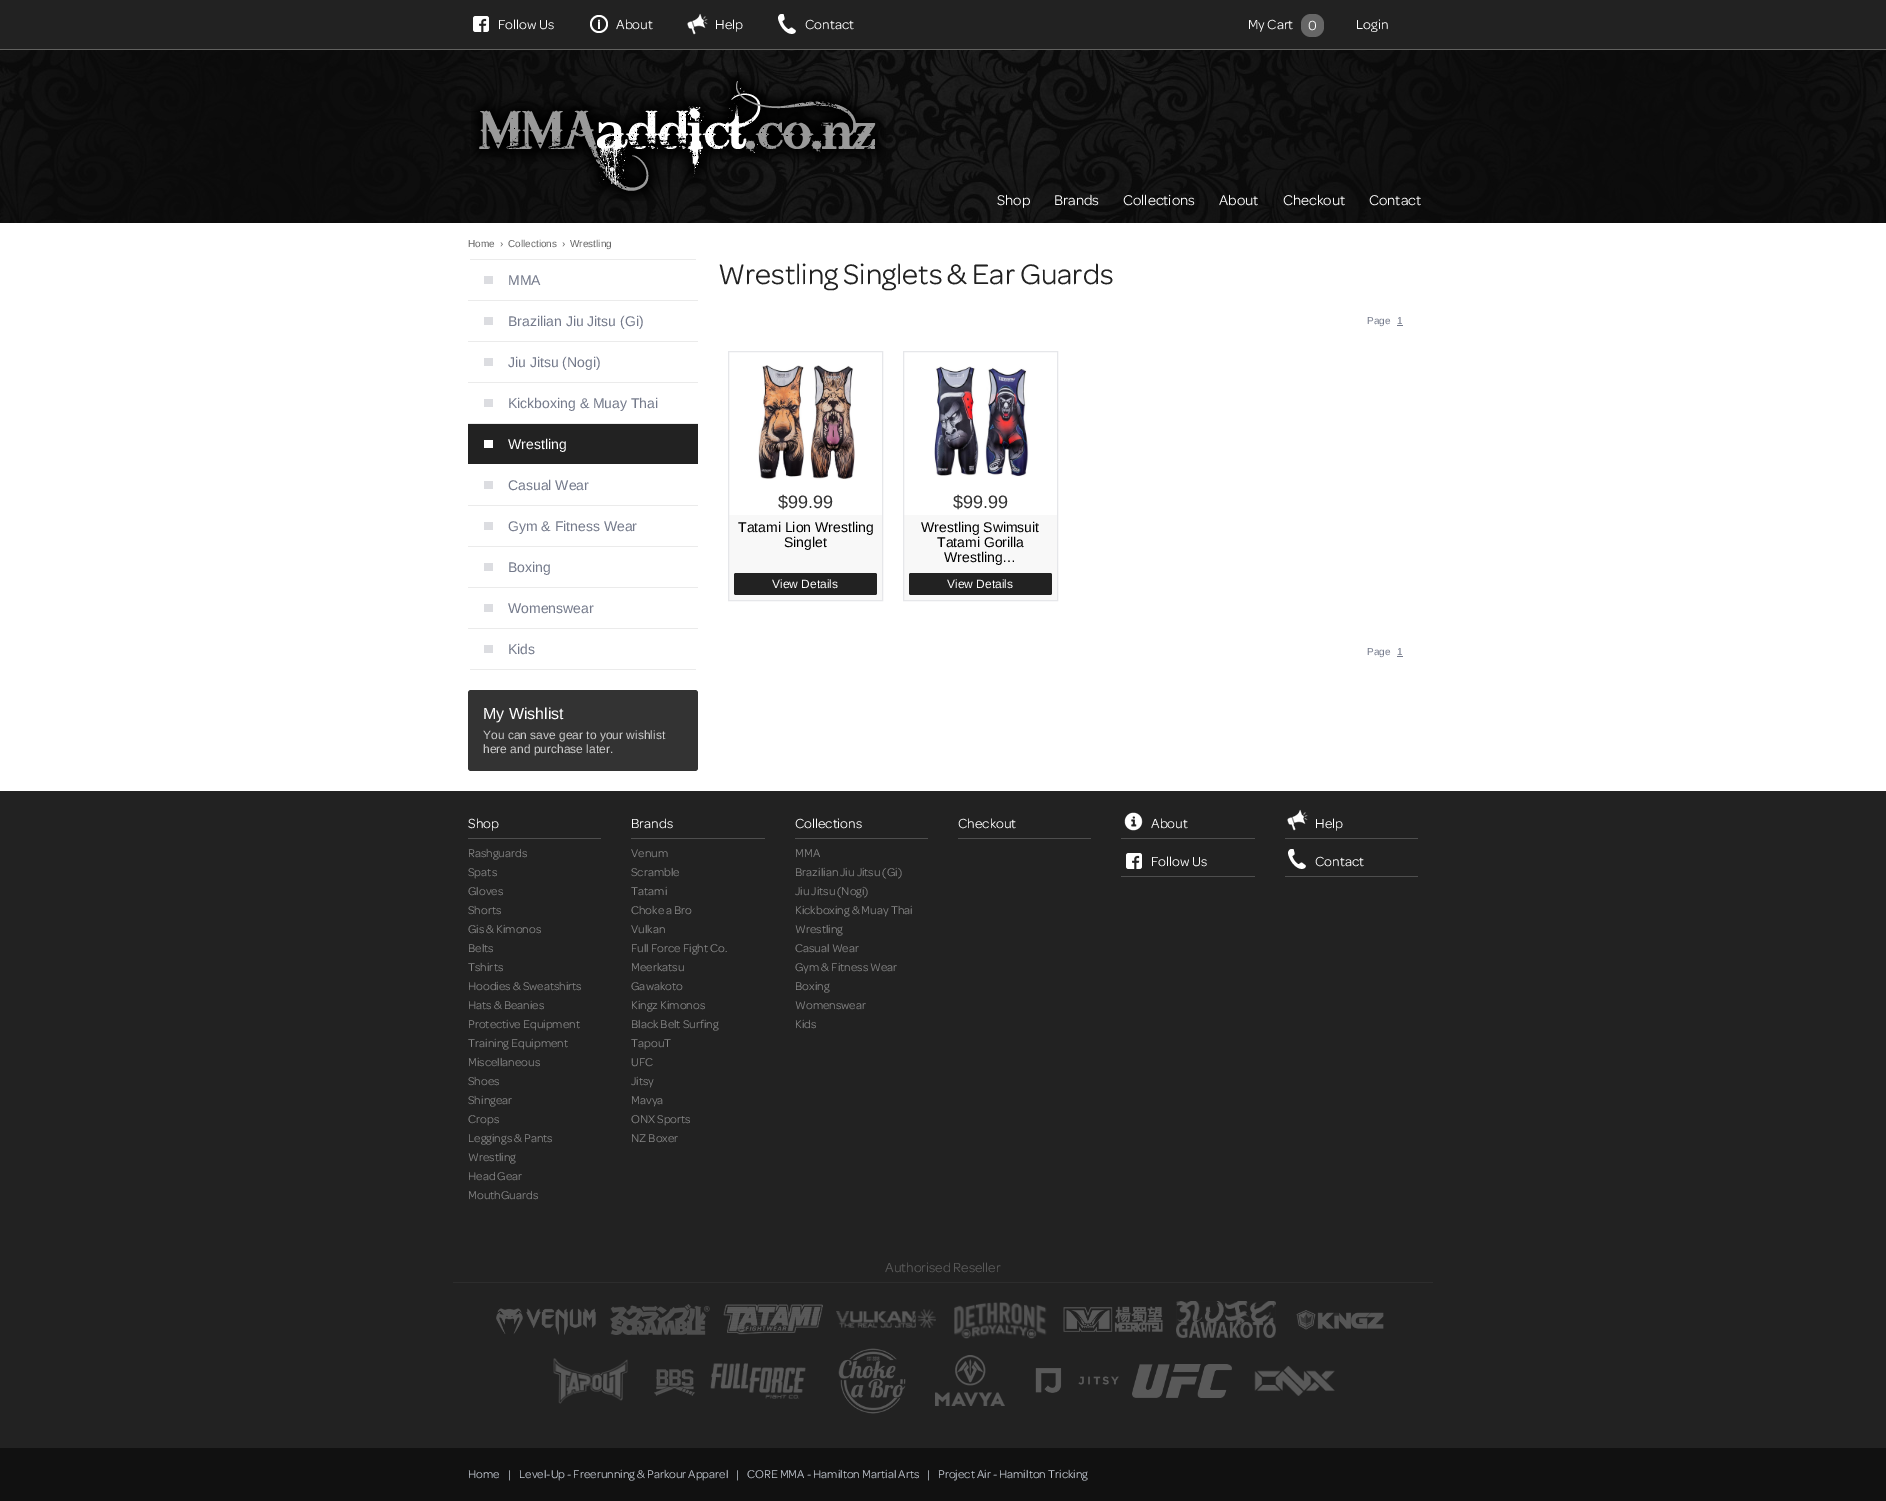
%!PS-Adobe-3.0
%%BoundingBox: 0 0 1886 1501
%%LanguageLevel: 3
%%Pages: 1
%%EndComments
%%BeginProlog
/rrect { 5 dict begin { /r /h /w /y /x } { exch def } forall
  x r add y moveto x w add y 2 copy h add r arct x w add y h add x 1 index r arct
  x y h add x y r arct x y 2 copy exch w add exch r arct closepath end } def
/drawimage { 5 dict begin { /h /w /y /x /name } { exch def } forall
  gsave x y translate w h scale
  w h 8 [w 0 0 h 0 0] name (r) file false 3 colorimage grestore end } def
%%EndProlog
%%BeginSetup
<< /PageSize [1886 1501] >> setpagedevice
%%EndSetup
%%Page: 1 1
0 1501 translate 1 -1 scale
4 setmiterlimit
0.067 setgray
0 0 1886 1501 rectfill
0.133 setgray
0 0 1886 49 rectfill
0.38 0.38 0.373 setrgbcolor
0 49 1886 1 rectfill
(images/1.raw) 473 16 16 16 drawimage
(images/2.raw) 590 15 18 18 drawimage
(images/3.raw) 687 13 21 22 drawimage
(images/4.raw) 778 14 18 20 drawimage
0.4 setgray
1301 14 23 23 10 rrect fill
1 setgray
0 223 1886 568 rectfill
(images/5.raw) 0 50 1886 173 drawimage
(images/6.raw) 471 72 415 129 drawimage
gsave
468 259 230 411 5 rrect clip newpath
0.922 setgray
468 259 230 1 rectfill
grestore
0.922 setgray
468 300 230 1 rectfill
0.863 0.867 0.882 setrgbcolor
484 276 9 8 rectfill
0.922 setgray
468 341 230 1 rectfill
0.863 0.867 0.882 setrgbcolor
484 317 9 8 rectfill
0.922 setgray
468 382 230 1 rectfill
0.863 0.867 0.882 setrgbcolor
484 358 9 8 rectfill
0.922 setgray
468 423 230 1 rectfill
0.863 0.867 0.882 setrgbcolor
484 399 9 8 rectfill
0.133 setgray
468 424 230 40 rectfill
1 setgray
484 440 9 8 rectfill
0.922 setgray
468 505 230 1 rectfill
0.863 0.867 0.882 setrgbcolor
484 481 9 8 rectfill
0.922 setgray
468 546 230 1 rectfill
0.863 0.867 0.882 setrgbcolor
484 522 9 8 rectfill
0.922 setgray
468 587 230 1 rectfill
0.863 0.867 0.882 setrgbcolor
484 563 9 8 rectfill
0.922 setgray
468 628 230 1 rectfill
0.863 0.867 0.882 setrgbcolor
484 604 9 8 rectfill
gsave
468 259 230 411 5 rrect clip newpath
0.922 setgray
468 669 230 1 rectfill
grestore
484 645 9 8 rectfill
0.2 setgray
468 690 230 81 3 rrect fill
0.455 0.478 0.545 setrgbcolor
1397 325 6 1 rectfill
0.973 setgray
729 515 153 85 rectfill
0.902 0.906 0.918 setrgbcolor
728.5 351.5 154 249 rectstroke
(images/7.raw) 758 365 97 115 drawimage
0.133 setgray
734 573 143 22 2 rrect fill
0.973 setgray
904 515 153 85 rectfill
0.902 0.906 0.918 setrgbcolor
903.5 351.5 154 249 rectstroke
(images/8.raw) 934 366 95 111 drawimage
0.133 setgray
909 573 143 22 2 rrect fill
0.455 0.478 0.545 setrgbcolor
1397 656 6 1 rectfill
0.133 setgray
0 791 1886 657 rectfill
0.306 setgray
468 838 133 1 rectfill
631 838 134 1 rectfill
795 838 133 1 rectfill
958 838 133 1 rectfill
1121 838 134 1 rectfill
(images/9.raw) 1124 812 19 19 drawimage
1121 876 134 1 rectfill
(images/1.raw) 1126 853 16 16 drawimage
1285 838 133 1 rectfill
(images/3.raw) 1287 809 21 22 drawimage
1285 876 133 1 rectfill
(images/4.raw) 1288 849 18 20 drawimage
0.176 setgray
453 1282 980 1 rectfill
(images/10.raw) 496 1308 100 27 drawimage
(images/11.raw) 610 1304 100 31 drawimage
(images/12.raw) 723 1304 100 31 drawimage
(images/13.raw) 836 1309 100 19 drawimage
(images/14.raw) 954 1302 93 37 drawimage
(images/15.raw) 1063 1306 100 26 drawimage
(images/16.raw) 1176 1301 100 37 drawimage
(images/17.raw) 1296 1310 88 20 drawimage
(images/18.raw) 553 1358 75 46 drawimage
(images/19.raw) 654 1369 41 27 drawimage
(images/20.raw) 710 1363 96 36 drawimage
(images/21.raw) 838 1348 68 66 drawimage
(images/22.raw) 935 1355 70 51 drawimage
(images/23.raw) 1035 1368 84 25 drawimage
(images/24.raw) 1132 1364 100 34 drawimage
(images/25.raw) 1254 1366 81 30 drawimage
/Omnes-Regular [14 0 0 -14 0 0] selectfont
1 setgray
498 29 moveto (Follow Us) show
616 29 moveto (About) show
715 29 moveto (Help) show
805 29 moveto (Contact) show
1248 29 moveto (My Cart) show
1308 30 moveto (0) show
1356 29 moveto (Login) show
/Omnes-Regular [15 0 0 -15 0 0] selectfont
997 205 moveto (Shop) show
1054 205 moveto (Brands) show
1123 205 moveto (Collections) show
1219 205 moveto (About) show
1283 205 moveto (Checkout) show
1369 205 moveto (Contact) show
/LiberationSans-Regular [10 0 0 -10 0 0] selectfont
0.4 setgray
468 247 moveto (Home) show
500 247 moveto (›) show
508 247 moveto (Collections) show
562 247 moveto (›) show
570 247 moveto (Wrestling) show
/LiberationSans-Regular [14 0 0 -14 0 0] selectfont
0.455 0.478 0.545 setrgbcolor
508 285 moveto (MMA) show
508 326 moveto (Brazilian Jiu Jitsu \(Gi\)) show
508 367 moveto (Jiu Jitsu \(Nogi\)) show
508 408 moveto (Kickboxing & Muay Thai) show
1 setgray
508 449 moveto (Wrestling) show
0.455 0.478 0.545 setrgbcolor
508 490 moveto (Casual Wear) show
508 531 moveto (Gym & Fitness Wear) show
508 572 moveto (Boxing) show
508 613 moveto (Womenswear) show
508 654 moveto (Kids) show
/LiberationSans-Regular [16 0 0 -16 0 0] selectfont
1 setgray
483 719 moveto (My Wishlist) show
/LiberationSans-Regular [12 0 0 -12 0 0] selectfont
0.8 setgray
483 739 moveto (You can save gear to your wishlist) show
483 753 moveto (here and purchase later.) show
/Omnes-Regular [30 0 0 -30 0 0] selectfont
0.133 setgray
718 284 moveto (Wrestling Singlets & Ear Guards) show
/LiberationSans-Regular [10 0 0 -10 0 0] selectfont
0.455 0.478 0.545 setrgbcolor
1367 324 moveto (Page) show
1397 324 moveto (1) show
/LiberationSans-Regular [18 0 0 -18 0 0] selectfont
0.2 setgray
778 508 moveto ($99.99) show
/LiberationSans-Regular [14 0 0 -14 0 0] selectfont
0 setgray
738 532 moveto (Tatami Lion Wrestling) show
784 547 moveto (Singlet) show
/LiberationSans-Regular [12 0 0 -12 0 0] selectfont
1 setgray
772 588 moveto (View Details) show
/LiberationSans-Regular [18 0 0 -18 0 0] selectfont
0.2 setgray
953 508 moveto ($99.99) show
/LiberationSans-Regular [14 0 0 -14 0 0] selectfont
0 setgray
921 532 moveto (Wrestling Swimsuit) show
937 547 moveto (Tatami Gorilla) show
944 562 moveto (Wrestling…) show
/LiberationSans-Regular [12 0 0 -12 0 0] selectfont
1 setgray
947 588 moveto (View Details) show
/LiberationSans-Regular [10 0 0 -10 0 0] selectfont
0.455 0.478 0.545 setrgbcolor
1367 655 moveto (Page) show
1397 655 moveto (1) show
/Omnes-Regular [14 0 0 -14 0 0] selectfont
1 setgray
468 828 moveto (Shop) show
/Omnes-Regular [12 0 0 -12 0 0] selectfont
0.533 setgray
468 857 moveto (Rashguards) show
468 876 moveto (Spats) show
468 895 moveto (Gloves) show
468 914 moveto (Shorts) show
468 933 moveto (Gis & Kimonos) show
468 952 moveto (Belts) show
468 971 moveto (Tshirts) show
468 990 moveto (Hoodies & Sweatshirts) show
468 1009 moveto (Hats & Beanies) show
468 1028 moveto (Protective Equipment) show
468 1047 moveto (Training Equipment) show
468 1066 moveto (Miscellaneous) show
468 1085 moveto (Shoes) show
468 1104 moveto (Shingear) show
468 1123 moveto (Crops) show
468 1142 moveto (Leggings & Pants) show
468 1161 moveto (Wrestling) show
468 1180 moveto (Head Gear) show
468 1199 moveto (MouthGuards) show
/Omnes-Regular [14 0 0 -14 0 0] selectfont
1 setgray
631 828 moveto (Brands) show
/Omnes-Regular [12 0 0 -12 0 0] selectfont
0.533 setgray
631 857 moveto (Venum) show
631 876 moveto (Scramble) show
631 895 moveto (Tatami) show
631 914 moveto (Choke a Bro) show
631 933 moveto (Vulkan) show
631 952 moveto (Full Force Fight Co.) show
631 971 moveto (Meerkatsu) show
631 990 moveto (Gawakoto) show
631 1009 moveto (Kingz Kimonos) show
631 1028 moveto (Black Belt Surfing) show
631 1047 moveto (TapouT) show
631 1066 moveto (UFC) show
631 1085 moveto (Jitsy) show
631 1104 moveto (Mavya) show
631 1123 moveto (ONX Sports) show
631 1142 moveto (NZ Boxer) show
/Omnes-Regular [14 0 0 -14 0 0] selectfont
1 setgray
795 828 moveto (Collections) show
/Omnes-Regular [12 0 0 -12 0 0] selectfont
0.533 setgray
795 857 moveto (MMA) show
795 876 moveto (Brazilian Jiu Jitsu \(Gi\)) show
795 895 moveto (Jiu Jitsu \(Nogi\)) show
795 914 moveto (Kickboxing & Muay Thai) show
795 933 moveto (Wrestling) show
795 952 moveto (Casual Wear) show
795 971 moveto (Gym & Fitness Wear) show
795 990 moveto (Boxing) show
795 1009 moveto (Womenswear) show
795 1028 moveto (Kids) show
/Omnes-Regular [14 0 0 -14 0 0] selectfont
1 setgray
958 828 moveto (Checkout) show
1151 828 moveto (About) show
1151 866 moveto (Follow Us) show
1315 828 moveto (Help) show
1315 866 moveto (Contact) show
0.349 setgray
885 1272 moveto (Authorised Reseller) show
/Omnes-Regular [12 0 0 -12 0 0] selectfont
0.776 0.8 0.835 setrgbcolor
468 1478 moveto (Home) show
508 1478 moveto (|) show
519 1478 moveto (Level-Up - Freerunning & Parkour Apparel) show
736 1478 moveto (|) show
747 1478 moveto (CORE MMA - Hamilton Martial Arts) show
927 1478 moveto (|) show
938 1478 moveto (Project Air - Hamilton Tricking) show
showpage
%%EOF
